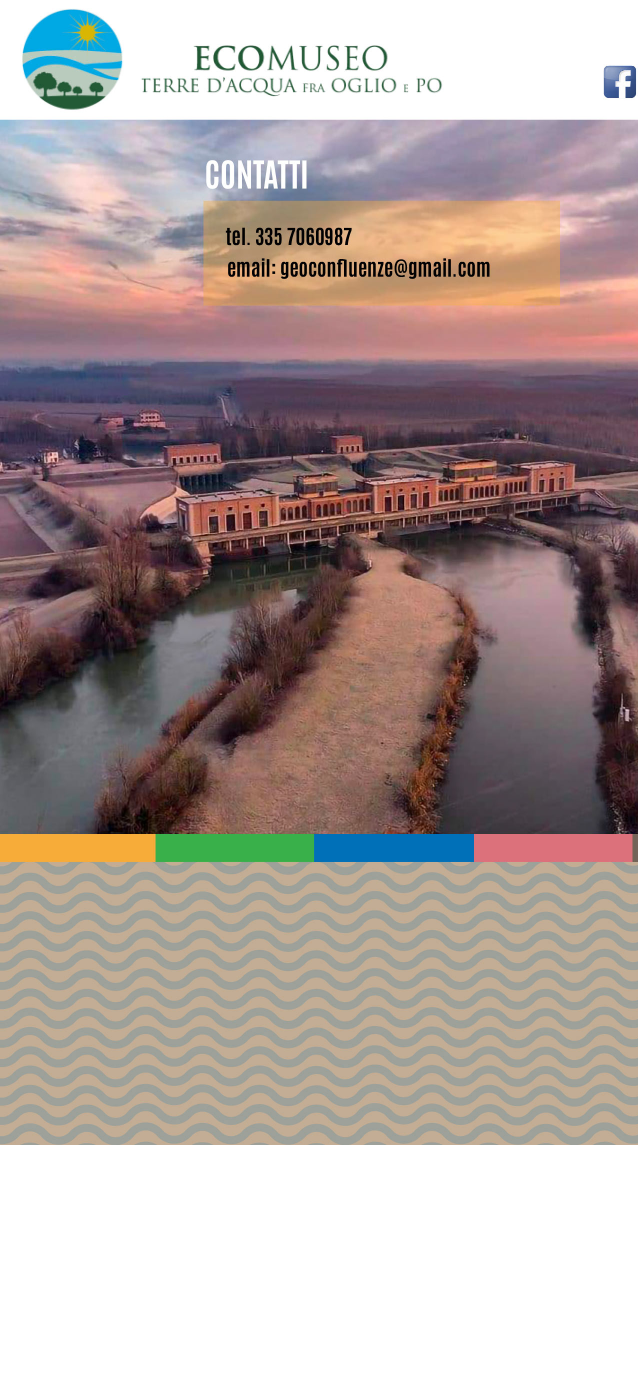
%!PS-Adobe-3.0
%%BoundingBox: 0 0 638 1390
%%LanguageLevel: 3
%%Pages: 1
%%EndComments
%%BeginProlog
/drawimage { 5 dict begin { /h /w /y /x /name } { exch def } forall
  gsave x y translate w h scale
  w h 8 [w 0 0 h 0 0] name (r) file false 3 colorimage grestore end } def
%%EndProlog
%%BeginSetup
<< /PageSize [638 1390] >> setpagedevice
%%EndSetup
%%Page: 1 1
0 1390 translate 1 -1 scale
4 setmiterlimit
1 setgray
0 0 638 1390 rectfill
(images/1.raw) 0 8 475 114 drawimage
(images/2.raw) 475 64 163 58 drawimage
(images/3.raw) 0 122 638 714 drawimage
(images/4.raw) 0 836 638 309 drawimage
showpage
%%EOF
